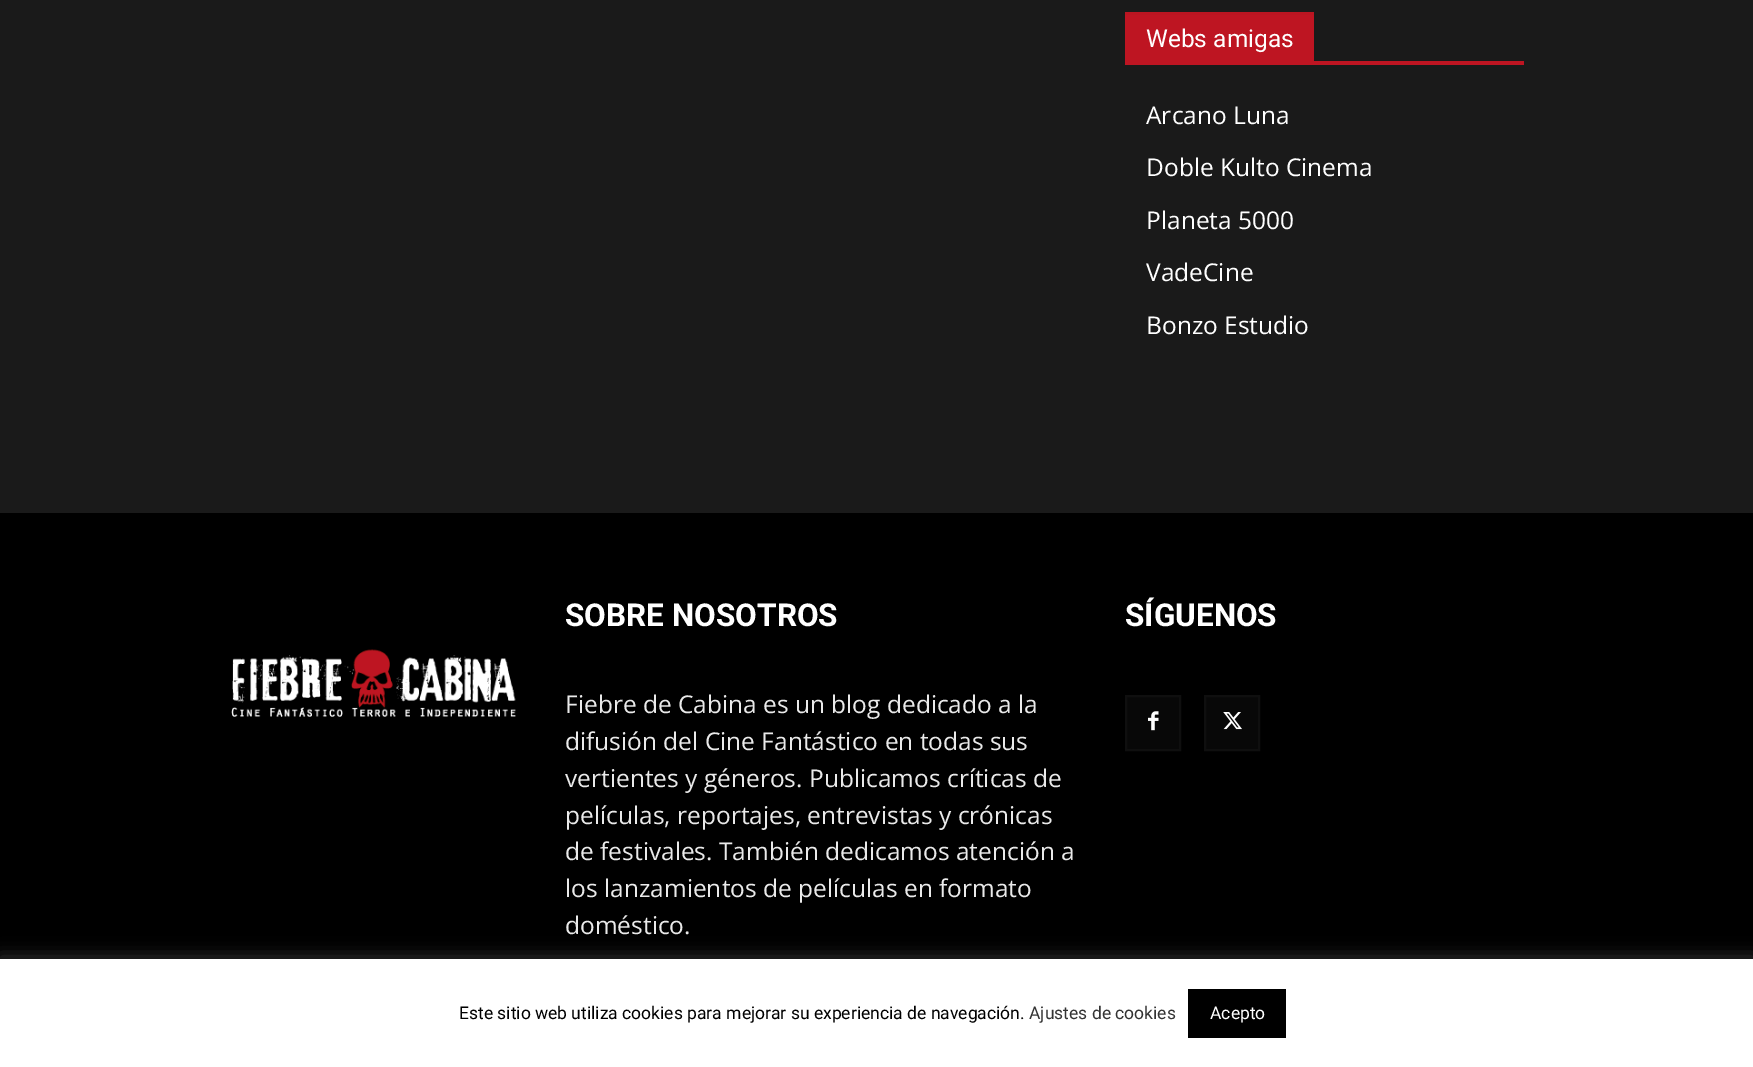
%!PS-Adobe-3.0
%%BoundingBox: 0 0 1753 1067
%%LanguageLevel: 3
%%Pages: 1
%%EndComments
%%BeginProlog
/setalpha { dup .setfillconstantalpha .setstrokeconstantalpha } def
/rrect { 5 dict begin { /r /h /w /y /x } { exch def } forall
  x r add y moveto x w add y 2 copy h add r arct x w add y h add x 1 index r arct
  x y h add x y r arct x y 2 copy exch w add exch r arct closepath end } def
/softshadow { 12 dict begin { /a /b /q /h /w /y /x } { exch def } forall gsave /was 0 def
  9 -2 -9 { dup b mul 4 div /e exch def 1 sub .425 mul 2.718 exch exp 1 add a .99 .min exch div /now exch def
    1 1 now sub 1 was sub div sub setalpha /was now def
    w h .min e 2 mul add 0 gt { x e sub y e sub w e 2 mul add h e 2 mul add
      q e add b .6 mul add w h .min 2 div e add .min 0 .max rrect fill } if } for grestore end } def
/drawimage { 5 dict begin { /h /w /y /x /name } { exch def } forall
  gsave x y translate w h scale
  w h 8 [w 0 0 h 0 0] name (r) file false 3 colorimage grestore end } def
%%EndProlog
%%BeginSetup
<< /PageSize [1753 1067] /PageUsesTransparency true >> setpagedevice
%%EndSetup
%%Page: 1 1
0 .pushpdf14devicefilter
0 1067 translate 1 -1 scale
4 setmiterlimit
0.102 setgray
0 0 1753 1067 rectfill
0.729 0.082 0.129 setrgbcolor
1125 12 189 3 rectfill
0.745 0.082 0.133 setrgbcolor
1125 61 399 4 rectfill
1125 15 189 46 rectfill
0 setgray
0 513 1753 446 rectfill
(images/1.raw) 231 649 285 68 drawimage
0.031 setgray
1127 697 52 52 rectfill
(images/2.raw) 1148 711 11 20 drawimage
0.059 setgray
2 setlinewidth
1126 696 54 54 rectstroke
0.031 setgray
1206 697 52 52 rectfill
(images/3.raw) 1223 712 19 18 drawimage
0.059 setgray
1205 696 54 54 rectstroke
0.675 0.671 0.671 setrgbcolor
0 957 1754 109 0 9 0.3 softshadow
1 setgray
0 959 1753 108 rectfill
0 setgray
1188 989 98 49 rectfill
/Roboto-Regular [24.5 0 0 -24.5 0 0] selectfont
1 setgray
1146 47 moveto (Webs amigas) show
/OpenSans-Regular [24.5 0 0 -24.5 0 0] selectfont
1146 124 moveto (Arcano Luna) show
1146 176 moveto (Doble Kulto Cinema) show
1146 229 moveto (Planeta 5000) show
1146 281 moveto (VadeCine) show
1146 334 moveto (Bonzo Estudio) show
/Roboto-Bold [31.5 0 0 -31.5 0 0] selectfont
565 626 moveto (SOBRE NOSOTROS) show
/OpenSans-Regular [24.5 0 0 -24.5 0 0] selectfont
0.918 setgray
565 713 moveto (Fiebre de Cabina es un blog dedicado a la) show
565 750 moveto (difusión del Cine Fantástico en todas sus) show
565 787 moveto (vertientes y géneros. Publicamos críticas de) show
565 824 moveto (películas, reportajes, entrevistas y crónicas) show
565 860 moveto (de festivales. También dedicamos atención a) show
565 897 moveto (los lanzamientos de películas en formato) show
565 934 moveto (doméstico.) show
/Roboto-Bold [31.5 0 0 -31.5 0 0] selectfont
1 setgray
1125 626 moveto (SÍGUENOS) show
/Roboto-Regular [17.5 0 0 -17.5 0 0] selectfont
0 setgray
459 1019 moveto (Este sitio web utiliza cookies para mejorar su experiencia de navegación.) show
0.2 setgray
1029 1019 moveto (Ajustes de cookies) show
1 setgray
1210 1019 moveto (Acepto) show
.poppdf14devicefilter showpage
%%EOF
